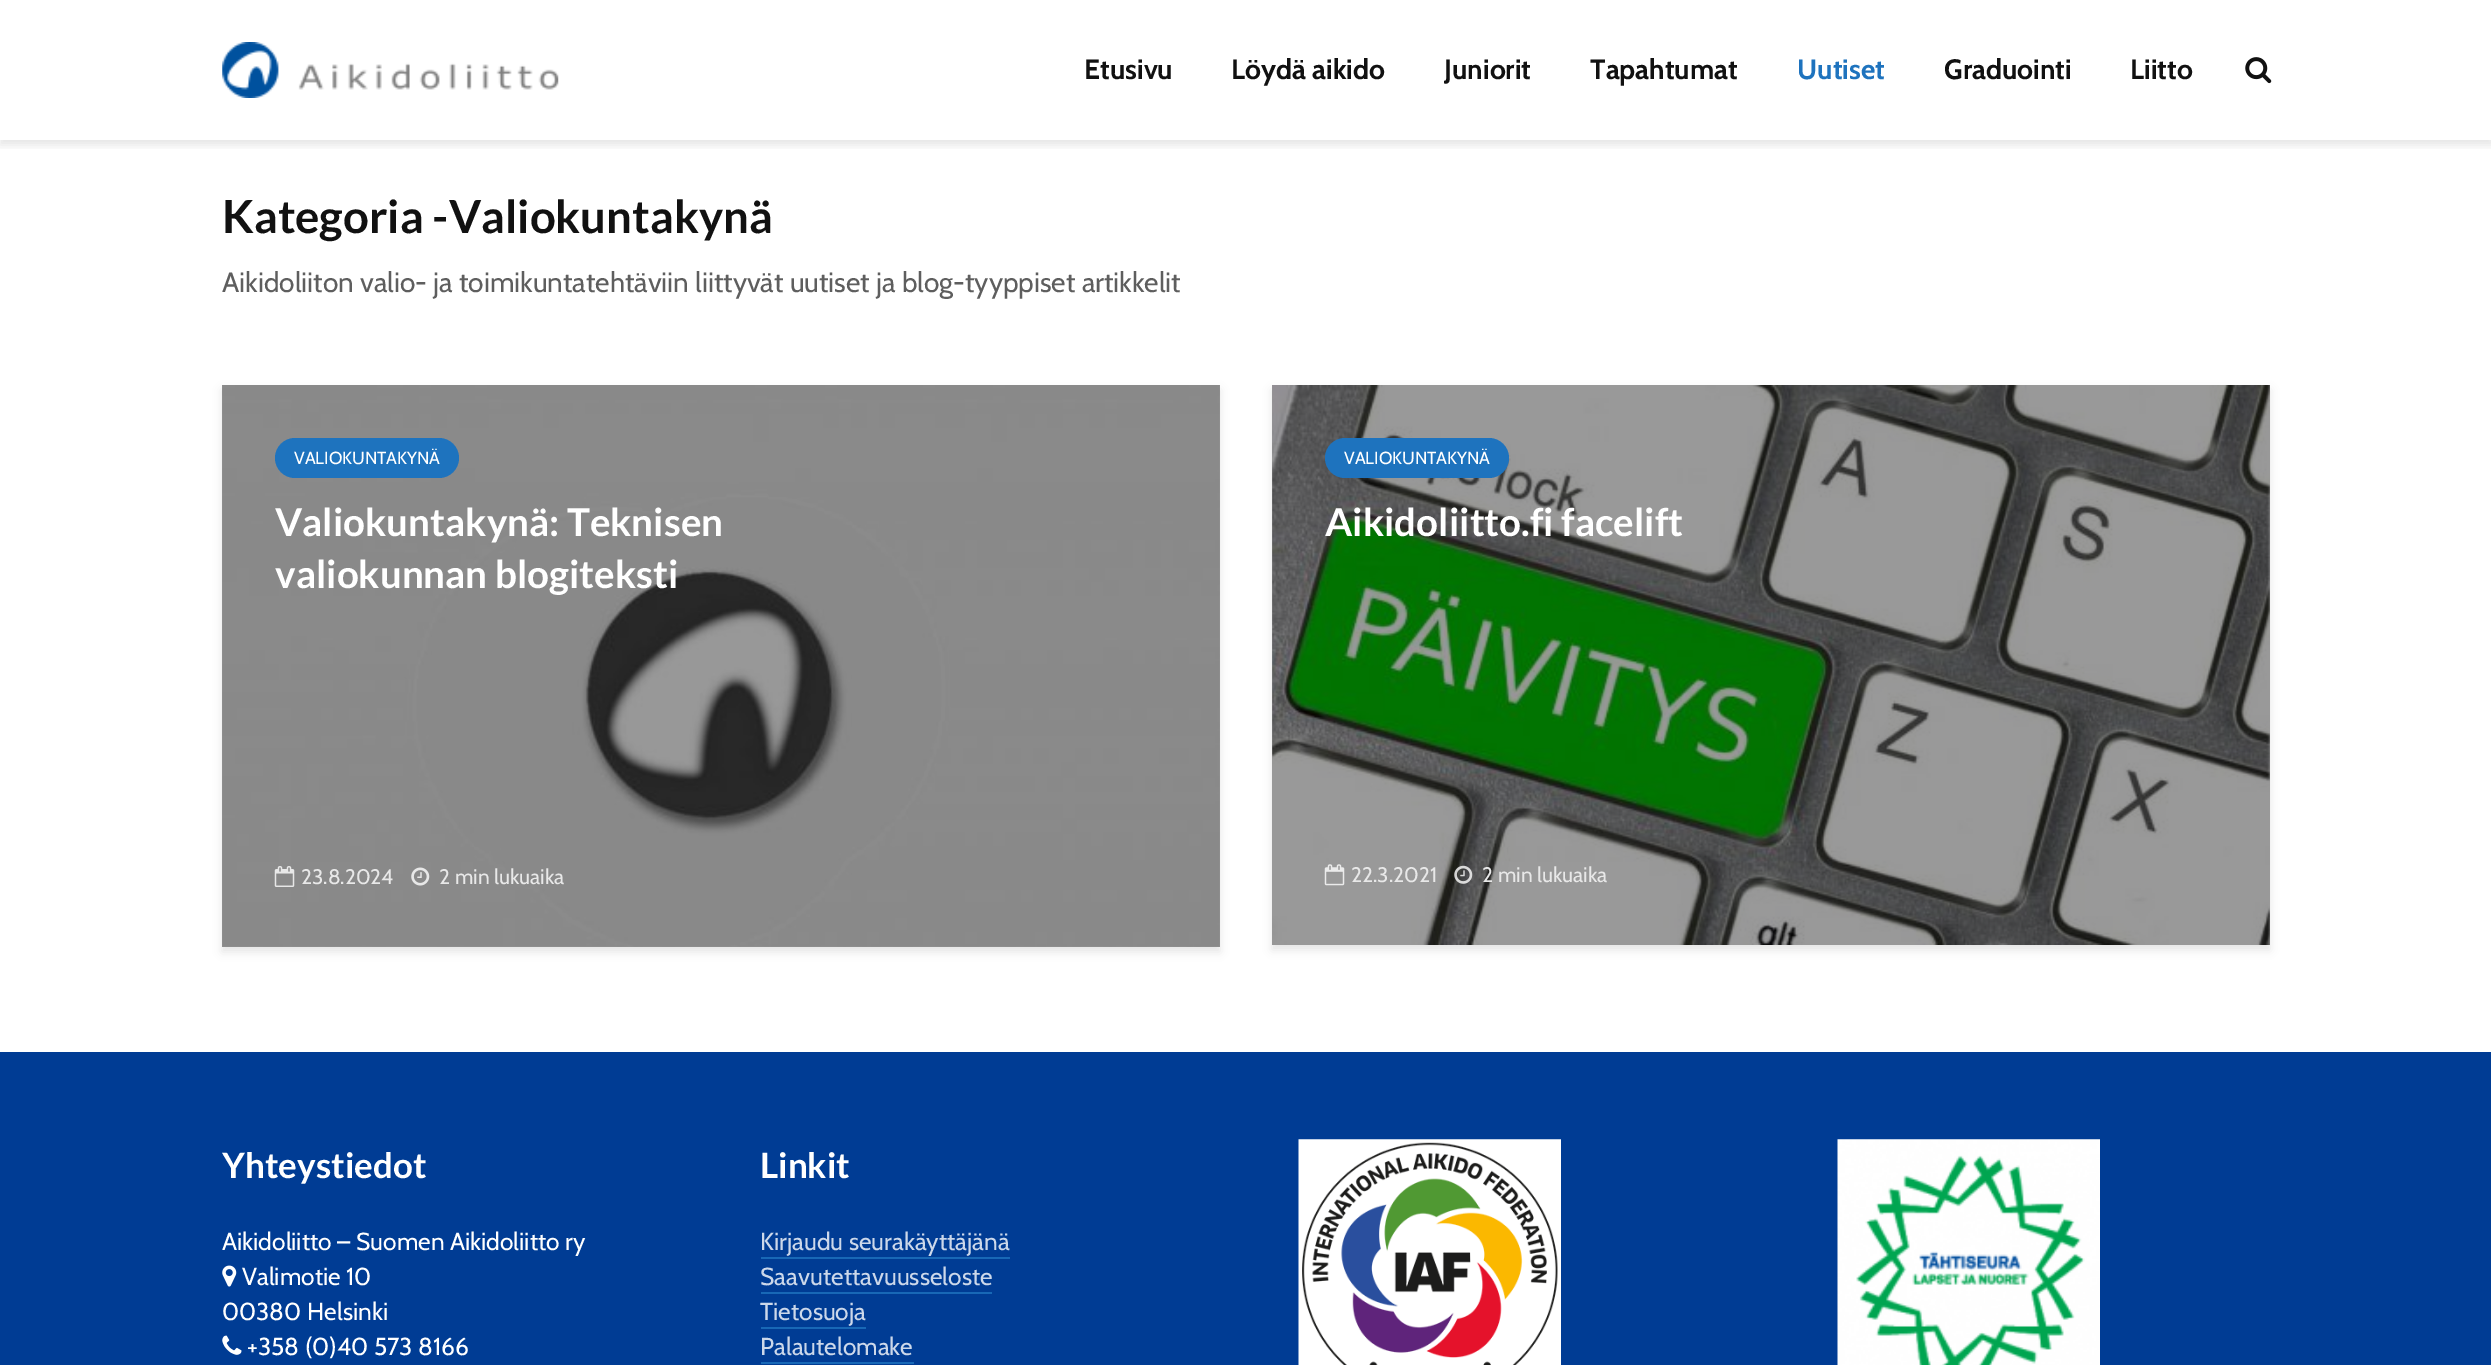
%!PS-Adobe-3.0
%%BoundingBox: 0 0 2491 1365
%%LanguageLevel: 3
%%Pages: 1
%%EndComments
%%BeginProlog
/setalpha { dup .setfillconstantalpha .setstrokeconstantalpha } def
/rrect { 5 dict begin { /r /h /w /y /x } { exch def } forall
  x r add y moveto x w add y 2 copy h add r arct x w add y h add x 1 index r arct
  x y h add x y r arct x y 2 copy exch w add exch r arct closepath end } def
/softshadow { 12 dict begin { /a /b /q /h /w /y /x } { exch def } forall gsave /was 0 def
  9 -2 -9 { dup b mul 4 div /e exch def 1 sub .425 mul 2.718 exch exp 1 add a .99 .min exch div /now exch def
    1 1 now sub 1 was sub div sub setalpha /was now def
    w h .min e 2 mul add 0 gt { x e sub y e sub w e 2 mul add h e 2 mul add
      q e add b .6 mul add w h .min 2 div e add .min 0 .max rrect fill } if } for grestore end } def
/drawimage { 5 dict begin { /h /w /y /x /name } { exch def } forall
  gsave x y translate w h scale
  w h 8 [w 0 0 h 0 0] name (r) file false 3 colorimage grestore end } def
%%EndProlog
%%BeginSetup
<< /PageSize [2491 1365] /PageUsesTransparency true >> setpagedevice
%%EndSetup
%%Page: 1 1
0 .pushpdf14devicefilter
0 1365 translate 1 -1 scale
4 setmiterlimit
1 setgray
0 0 2491 1365 rectfill
gsave
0 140 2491 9 rectclip
0 0.004 0.004 setrgbcolor
0 5 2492 140 0 4.5 0.1 softshadow
grestore
(images/1.raw) 222 42 337 56 drawimage
(images/2.raw) 2245 57 27 27 drawimage
0 0.004 0.004 setrgbcolor
222 390 998 562 0 4.5 0.1 softshadow
1 setgray
222 385 998 562 rectfill
(images/3.raw) 222 385 998 562 drawimage
0.4 setalpha
0 setgray
222 385 998 562 rectfill
1 setalpha
0.118 0.451 0.745 setrgbcolor
275 438 184 40 20 rrect fill
(images/4.raw) 274 866 21 21 drawimage
(images/5.raw) 411 867 19 19 drawimage
0 0.004 0.004 setrgbcolor
1272 390 998 560 0 4.5 0.1 softshadow
(images/6.raw) 1272 385 998 560 drawimage
0.4 setalpha
0 setgray
1272 385 998 560 rectfill
1 setalpha
0.118 0.451 0.745 setrgbcolor
1325 438 184 40 20 rrect fill
(images/7.raw) 1324 864 21 22 drawimage
(images/8.raw) 1454 865 19 19 drawimage
0 0.235 0.58 setrgbcolor
0 1052 2491 313 rectfill
(images/9.raw) 222 1265 15 22 drawimage
(images/10.raw) 222 1335 20 20 drawimage
0.094 0.408 0.714 setrgbcolor
761 1257 249 2 rectfill
761 1292 231 2 rectfill
761 1327 105 2 rectfill
761 1362 153 2 rectfill
(images/11.raw) 1298 1139 263 226 drawimage
(images/12.raw) 1837 1139 263 226 drawimage
/Cabin-Bold [28 0 0 -28 0 0] selectfont
0.067 setgray
1084 79 moveto (Etusivu) show
1231 79 moveto (Löydä aikido) show
1444 79 moveto (Juniorit) show
1590 79 moveto (Tapahtumat) show
0.118 0.451 0.745 setrgbcolor
1797 79 moveto (Uutiset) show
0.067 setgray
1944 79 moveto (Graduointi) show
2130 79 moveto (Liitto) show
/Lato-Bold [45.5 0 0 -45.5 0 0] selectfont
222 233 moveto (Kategoria -Valiokuntakynä) show
/Cabin-Regular [28 0 0 -28 0 0] selectfont
0.369 setgray
222 292 moveto (Aikidoliiton valio- ja toimikuntatehtäviin liittyvät uutiset ja blog-tyyppiset artikkelit) show
/Cabin-Regular [17.5 0 0 -17.5 0 0] selectfont
1 setgray
294 464 moveto (VALIOKUNTAKYNÄ) show
/Lato-Bold [38.5 0 0 -38.5 0 0] selectfont
275 536 moveto (Valiokuntakynä: Teknisen) show
275 588 moveto (valiokunnan blogiteksti) show
/Cabin-Regular [21 0 0 -21 0 0] selectfont
0.91 setgray
301 884 moveto (23.8.2024) show
439 884 moveto (2 min lukuaika) show
/Cabin-Regular [17.5 0 0 -17.5 0 0] selectfont
1 setgray
1344 464 moveto (VALIOKUNTAKYNÄ) show
/Lato-Bold [38.5 0 0 -38.5 0 0] selectfont
1325 536 moveto (Aikidoliitto.fi facelift) show
/Cabin-Regular [21 0 0 -21 0 0] selectfont
0.91 setgray
1351 882 moveto (22.3.2021) show
1482 882 moveto (2 min lukuaika) show
/Lato-Bold [35 0 0 -35 0 0] selectfont
1 setgray
222 1178 moveto (Yhteystiedot) show
/Cabin-Regular [24.5 0 0 -24.5 0 0] selectfont
222 1250 moveto (Aikidoliitto – Suomen Aikidoliitto ry) show
242 1285 moveto (Valimotie 10) show
222 1320 moveto (00380 Helsinki) show
247 1355 moveto (+358 \(0\)40 573 8166) show
/Lato-Bold [35 0 0 -35 0 0] selectfont
760 1178 moveto (Linkit) show
/Cabin-Regular [24.5 0 0 -24.5 0 0] selectfont
0.8 0.847 0.918 setrgbcolor
760 1250 moveto (Kirjaudu seurakäyttäjänä) show
760 1285 moveto (Saavutettavuusseloste) show
760 1320 moveto (Tietosuoja) show
760 1355 moveto (Palautelomake) show
.poppdf14devicefilter showpage
%%EOF
